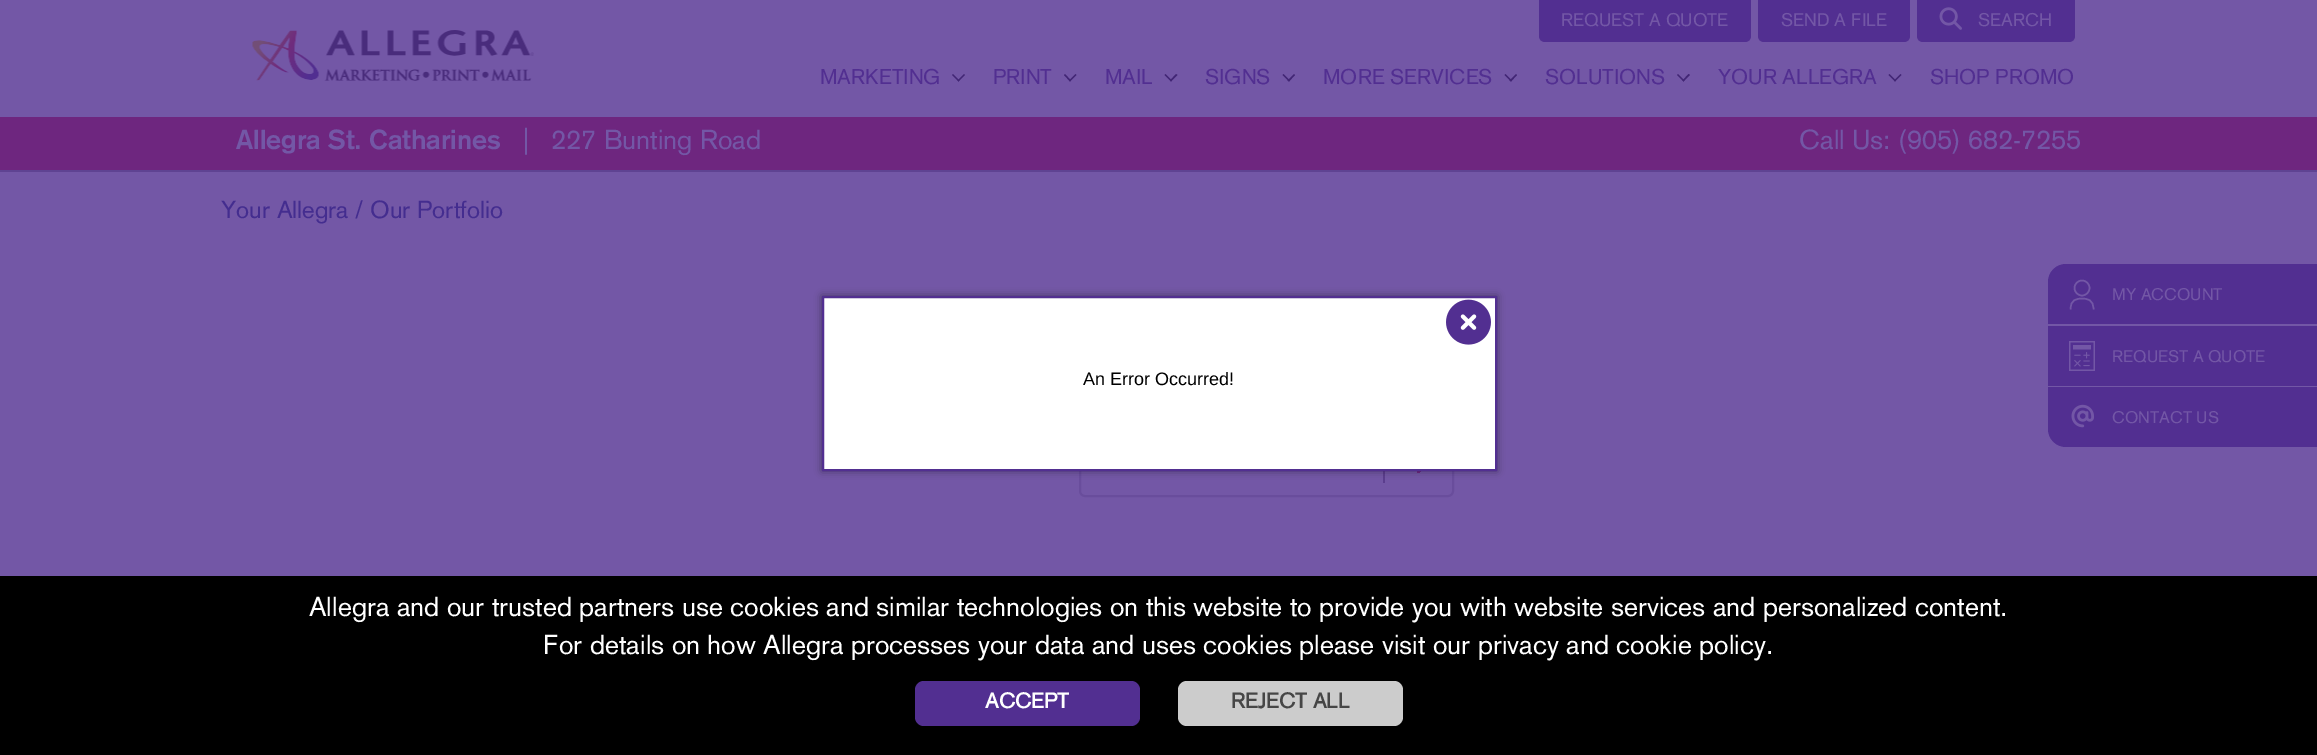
%!PS-Adobe-3.0
%%BoundingBox: 0 0 2317 755
%%LanguageLevel: 3
%%Pages: 1
%%EndComments
%%BeginProlog
/setalpha { dup .setfillconstantalpha .setstrokeconstantalpha } def
/rrect { 5 dict begin { /r /h /w /y /x } { exch def } forall
  x r add y moveto x w add y 2 copy h add r arct x w add y h add x 1 index r arct
  x y h add x y r arct x y 2 copy exch w add exch r arct closepath end } def
/softshadow { 12 dict begin { /a /b /q /h /w /y /x } { exch def } forall gsave /was 0 def
  9 -2 -9 { dup b mul 4 div /e exch def 1 sub .425 mul 2.718 exch exp 1 add a .99 .min exch div /now exch def
    1 1 now sub 1 was sub div sub setalpha /was now def
    w h .min e 2 mul add 0 gt { x e sub y e sub w e 2 mul add h e 2 mul add
      q e add b .6 mul add w h .min 2 div e add .min 0 .max rrect fill } if } for grestore end } def
/drawimage { 5 dict begin { /h /w /y /x /name } { exch def } forall
  gsave x y translate w h scale
  w h 8 [w 0 0 h 0 0] name (r) file false 3 colorimage grestore end } def
%%EndProlog
%%BeginSetup
<< /PageSize [2317 755] /PageUsesTransparency true >> setpagedevice
%%EndSetup
%%Page: 1 1
0 .pushpdf14devicefilter
0 755 translate 1 -1 scale
4 setmiterlimit
0.451 0.341 0.651 setrgbcolor
0 0 2317 755 rectfill
0.373 0.263 0.573 setrgbcolor
0 170 2317 2 rectfill
(images/1.raw) 252 30 282 51 drawimage
0.322 0.184 0.569 setrgbcolor
newpath 1539 0 moveto 1751 0 lineto 1751 36 lineto 1751 39.5 1748.5 42 1745 42 curveto 1545 42 lineto 1541.5 42 1539 39.5 1539 36 curveto closepath fill
newpath 1758 0 moveto 1910 0 lineto 1910 36 lineto 1910 39.5 1907.5 42 1904 42 curveto 1764 42 lineto 1760.5 42 1758 39.5 1758 36 curveto closepath fill
newpath 1917 0 moveto 2075 0 lineto 2075 36 lineto 2075 39.5 2072.5 42 2069 42 curveto 1923 42 lineto 1919.5 42 1917 39.5 1917 36 curveto closepath fill
(images/2.raw) 1939 7 23 23 drawimage
0.259 0.149 0.459 setrgbcolor
newpath 964 74 moveto 965 75 lineto 958.5 81.5 lineto 957.5 80.5 lineto closepath fill
newpath 953 74 moveto 959.5 80.5 lineto 958.5 81.5 lineto 952 75 lineto closepath fill
newpath 1075.5 74 moveto 1076.5 75 lineto 1070 81.5 lineto 1069 80.5 lineto closepath fill
newpath 1065 74 moveto 1071 80.5 lineto 1070 81.5 lineto 1064 75 lineto closepath fill
newpath 1176 74 moveto 1177.5 75 lineto 1171 81.5 lineto 1170 80.5 lineto closepath fill
newpath 1165.5 74 moveto 1172 80.5 lineto 1171 81.5 lineto 1164.5 75 lineto closepath fill
newpath 1294 74 moveto 1295 75 lineto 1289 81.5 lineto 1287.5 80.5 lineto closepath fill
newpath 1283.5 74 moveto 1290 80.5 lineto 1289 81.5 lineto 1282.5 75 lineto closepath fill
newpath 1516 74 moveto 1517 75 lineto 1511 81.5 lineto 1509.5 80.5 lineto closepath fill
newpath 1505.5 74 moveto 1512 80.5 lineto 1511 81.5 lineto 1504.5 75 lineto closepath fill
newpath 1688.5 74 moveto 1690 75 lineto 1683.5 81.5 lineto 1682.5 80.5 lineto closepath fill
newpath 1678 74 moveto 1684.5 80.5 lineto 1683.5 81.5 lineto 1677 75 lineto closepath fill
newpath 1900.5 74 moveto 1901.5 75 lineto 1895 81.5 lineto 1894 80.5 lineto closepath fill
newpath 1889.5 74 moveto 1896 80.5 lineto 1895 81.5 lineto 1888.5 75 lineto closepath fill
0.431 0.149 0.498 setrgbcolor
0 117 2317 53 rectfill
0.357 0.243 0.557 setrgbcolor
1383 471 2 12 rectfill
gsave newpath 1419 471 moveto 1422 471 lineto 1422 473 lineto 1419 473 lineto closepath clip newpath
<< /ShadingType 2 /ColorSpace /DeviceRGB /Coords [1419 459 1434 474] /Extend [true true] /Function << /FunctionType 3 /Domain [0 1] /Functions [<< /FunctionType 2 /Domain [0 1] /C0 [0.431 0.149 0.498] /C1 [0.431 0.149 0.498] /N 1 >> << /FunctionType 2 /Domain [0 1] /C0 [0.451 0.341 0.651] /C1 [0.451 0.341 0.651] /N 1 >>] /Bounds [0.5] /Encode [0 1 0 1] >> >> shfill grestore
gsave newpath 1417 471 moveto 1419 471 lineto 1419 473 lineto 1417 473 lineto closepath clip newpath
<< /ShadingType 2 /ColorSpace /DeviceRGB /Coords [1404 474 1419 459] /Extend [true true] /Function << /FunctionType 3 /Domain [0 1] /Functions [<< /FunctionType 2 /Domain [0 1] /C0 [0.451 0.341 0.651] /C1 [0.451 0.341 0.651] /N 1 >> << /FunctionType 2 /Domain [0 1] /C0 [0.431 0.149 0.498] /C1 [0.431 0.149 0.498] /N 1 >>] /Bounds [0.5] /Encode [0 1 0 1] >> >> shfill grestore
0.412 0.302 0.612 setrgbcolor
2 setlinewidth
1080 435 373 61 5 rrect stroke
0 setgray
822 296 675 175 0 4 0.4 softshadow
1 setgray
newpath 823 297 moveto 1496 297 lineto 1496 470 lineto 823 470 lineto closepath gsave fill grestore
0.322 0.184 0.569 setrgbcolor
stroke
(images/3.raw) 1446 299 45 46 drawimage
newpath 2066 264 moveto 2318 264 lineto 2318 447 lineto 2066 447 lineto 2056 447 2048 439 2048 429 curveto 2048 282 lineto 2048 272 2056 264 2066 264 curveto closepath fill
0.451 0.341 0.651 setrgbcolor
2048 324 269 2 rectfill
1.5 setlinewidth
newpath 2082 288 7.5 0 360 arc closepath stroke
newpath 2093.5 309.5 moveto 2093.5 299.5 2088 298.5 2080.5 298.5 curveto 2070.5 309.5 moveto 2070.5 299.5 2076 298.5 2083.5 298.5 curveto stroke
2048 386 269 1 rectfill
(images/4.raw) 2069 341 26 30 drawimage
(images/5.raw) 2071 404 23 24 drawimage
0 setgray
0 576 2317 179 rectfill
0.322 0.184 0.569 setrgbcolor
915 681 225 45 9 rrect fill
0.8 setgray
1178 681 225 45 9 rrect fill
/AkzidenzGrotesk-Regular [18 0 0 -18 0 0] selectfont
0.451 0.341 0.651 setrgbcolor
1561 26 moveto (REQUEST A QUOTE) show
1781 26 moveto (SEND A FILE) show
1978 26 moveto (SEARCH) show
/AkzidenzGrotesk-Regular [21 0 0 -21 0 0] selectfont
0.322 0.184 0.569 setrgbcolor
820 84 moveto (MARKETING) show
993 84 moveto (PRINT) show
1105 84 moveto (MAIL) show
1205 84 moveto (SIGNS) show
1323 84 moveto (MORE SERVICES) show
1545 84 moveto (SOLUTIONS) show
1718 84 moveto (YOUR ALLEGRA) show
1930 84 moveto (SHOP PROMO) show
/AkzidenzGrotesk-Bold [27 0 0 -27 0 0] selectfont
0.451 0.341 0.651 setrgbcolor
236 149 moveto (Allegra St. Catharines) show
/AkzidenzGrotesk-Regular [27 0 0 -27 0 0] selectfont
523 149 moveto (|) show
551 149 moveto (227 Bunting Road) show
1799 149 moveto (Call Us: \(905\) 682-7255) show
/AkzidenzGrotesk-Regular [24.25 0 0 -24.25 0 0] selectfont
0.267 0.176 0.561 setrgbcolor
221 218 moveto (Your Allegra / Our Portfolio) show
/LiberationSans-Regular [18 0 0 -18 0 0] selectfont
0 setgray
1083 385 moveto (An Error Occurred!) show
/AkzidenzGrotesk-Regular [16.5 0 0 -16.5 0 0] selectfont
0.451 0.341 0.651 setrgbcolor
2112 300 moveto (MY ACCOUNT) show
2112 362 moveto (REQUEST A QUOTE) show
2112 423 moveto (CONTACT US) show
/AkzidenzGrotesk-Regular [27 0 0 -27 0 0] selectfont
1 setgray
309 616 moveto (Allegra and our trusted partners use cookies and similar technologies on this website to provide you with website services and personalized content.) show
543 654 moveto (For details on how Allegra processes your data and uses cookies please visit our privacy and cookie policy.) show
/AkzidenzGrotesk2-Bold [21 0 0 -21 0 0] selectfont
985 708 moveto (ACCEPT) show
0.275 setgray
1231 708 moveto (REJECT ALL) show
.poppdf14devicefilter showpage
%%EOF
